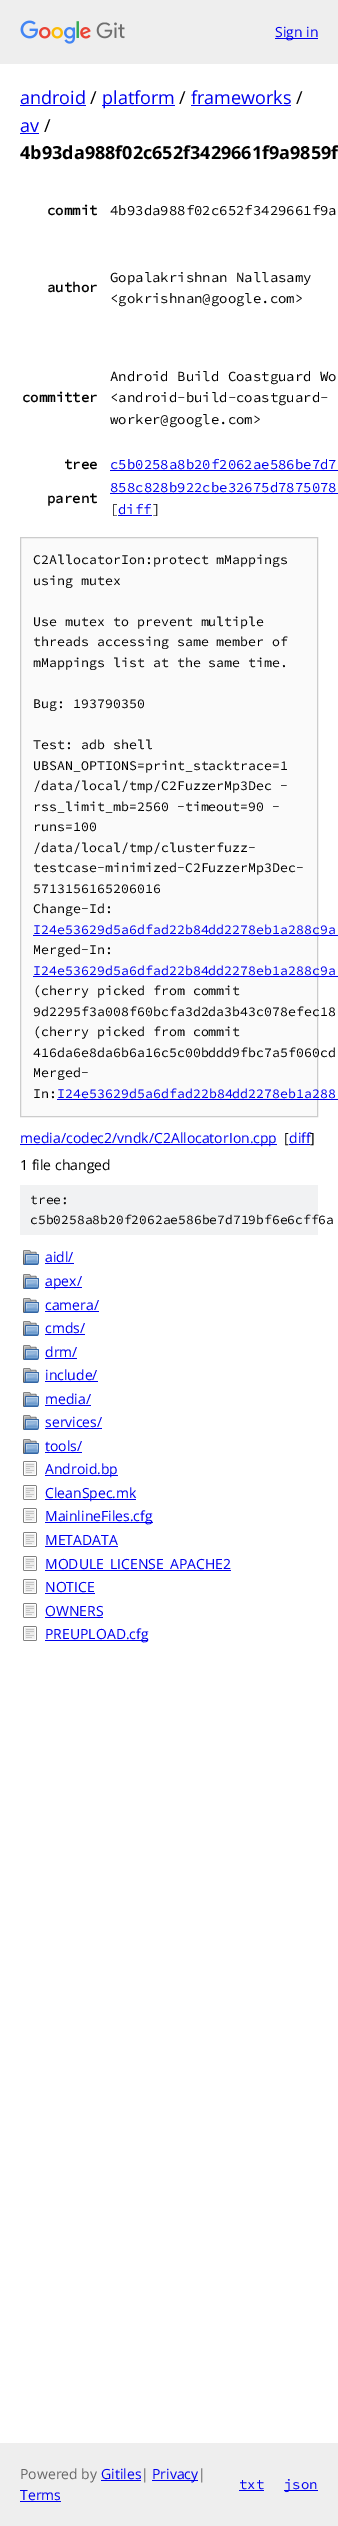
%!PS-Adobe-3.0
%%BoundingBox: 0 0 338 2526
%%LanguageLevel: 3
%%Pages: 1
%%EndComments
%%BeginProlog
/drawimage { 5 dict begin { /h /w /y /x /name } { exch def } forall
  gsave x y translate w h scale
  w h 8 [w 0 0 h 0 0] name (r) file false 3 colorimage grestore end } def
%%EndProlog
%%BeginSetup
<< /PageSize [338 2526] >> setpagedevice
%%EndSetup
%%Page: 1 1
0 2526 translate 1 -1 scale
4 setmiterlimit
1 setgray
0 0 338 2526 rectfill
0.933 setgray
0 0 338 64 rectfill
(images/1.raw) 20 20 105 24 drawimage
0 0 0.933 setrgbcolor
275 38 43 1 rectfill
20 105 66 1 rectfill
102 105 73 1 rectfill
191 105 100 1 rectfill
20 133 19 1 rectfill
110 470 228 1 rectfill
110 493 228 1 rectfill
118 515 34 1 rectfill
0.98 setgray
newpath 20.5 537.5 moveto 317.5 537.5 lineto 317.5 1116.5 lineto 20.5 1116.5 lineto closepath gsave fill grestore
0.8 setgray
stroke
0 0 0.933 setrgbcolor
33 935 305 1 rectfill
33 976 305 1 rectfill
57 1099 281 1 rectfill
20 1144 257 1 rectfill
289 1144 21 1 rectfill
0.945 0.949 0.953 setrgbcolor
20 1185 298 50 rectfill
(images/2.raw) 23 1250 16 15 drawimage
0 0 0.933 setrgbcolor
45 1263 29 1 rectfill
(images/2.raw) 23 1274 16 15 drawimage
45 1287 37 1 rectfill
(images/2.raw) 23 1298 16 15 drawimage
45 1311 54 1 rectfill
(images/2.raw) 23 1321 16 15 drawimage
45 1334 40 1 rectfill
(images/2.raw) 23 1345 16 15 drawimage
45 1358 32 1 rectfill
(images/2.raw) 23 1368 16 15 drawimage
45 1381 53 1 rectfill
(images/2.raw) 23 1392 16 15 drawimage
45 1405 46 1 rectfill
(images/2.raw) 23 1415 16 15 drawimage
45 1428 57 1 rectfill
(images/2.raw) 23 1439 16 15 drawimage
45 1452 37 1 rectfill
(images/3.raw) 23 1461 14 15 drawimage
45 1475 73 1 rectfill
(images/3.raw) 23 1485 14 15 drawimage
45 1499 91 1 rectfill
(images/3.raw) 23 1508 14 15 drawimage
45 1522 108 1 rectfill
(images/3.raw) 23 1532 14 15 drawimage
45 1546 73 1 rectfill
(images/3.raw) 23 1556 14 15 drawimage
45 1570 186 1 rectfill
(images/3.raw) 23 1579 14 15 drawimage
45 1593 50 1 rectfill
(images/3.raw) 23 1603 14 15 drawimage
45 1617 58 1 rectfill
(images/3.raw) 23 1626 14 15 drawimage
45 1640 103 1 rectfill
0.933 setgray
0 2443 338 83 rectfill
0 0 0.933 setrgbcolor
101 2480 40 1 rectfill
152 2480 46 1 rectfill
20 2501 41 1 rectfill
239 2490 25 1 rectfill
284 2490 34 1 rectfill
/OpenSans-Regular [14 0 0 -14 0 0] selectfont
275 37 moveto (Sign in) show
/OpenSans-Regular [18 0 0 -18 0 0] selectfont
20 104 moveto (android) show
0 setgray
90 104 moveto (/) show
0 0 0.933 setrgbcolor
102 104 moveto (platform) show
0 setgray
179 104 moveto (/) show
0 0 0.933 setrgbcolor
191 104 moveto (frameworks) show
0 setgray
296 104 moveto (/) show
0 0 0.933 setrgbcolor
20 132 moveto (av) show
0 setgray
44 132 moveto (/) show
/OpenSans-Bold [18 0 0 -18 0 0] selectfont
20 159 moveto (4b93da988f02c652f3429661f9a9859f) show
/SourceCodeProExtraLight-Bold [14 0 0 -14 0 0] selectfont
47 215 moveto (commit) show
/SourceCodeProExtraLight-ExtraLight [14 0 0 -14 0 0] selectfont
110 215 moveto (4b93da988f02c652f3429661f9a) show
/SourceCodeProExtraLight-Bold [14 0 0 -14 0 0] selectfont
47 292 moveto (author) show
/SourceCodeProExtraLight-ExtraLight [14 0 0 -14 0 0] selectfont
110 282 moveto (Gopalakrishnan Nallasamy) show
110 303 moveto (<gokrishnan@google.com>) show
/SourceCodeProExtraLight-Bold [14 0 0 -14 0 0] selectfont
22 402 moveto (committer) show
/SourceCodeProExtraLight-ExtraLight [14 0 0 -14 0 0] selectfont
110 381 moveto (Android Build Coastguard Wo) show
110 402 moveto (<android-build-coastguard-) show
110 424 moveto (worker@google.com>) show
/SourceCodeProExtraLight-Bold [14 0 0 -14 0 0] selectfont
64 469 moveto (tree) show
/SourceCodeProExtraLight-ExtraLight [14 0 0 -14 0 0] selectfont
0 0 0.933 setrgbcolor
110 469 moveto (c5b0258a8b20f2062ae586be7d7) show
/SourceCodeProExtraLight-Bold [14 0 0 -14 0 0] selectfont
0 setgray
47 503 moveto (parent) show
/SourceCodeProExtraLight-ExtraLight [14 0 0 -14 0 0] selectfont
0 0 0.933 setrgbcolor
110 492 moveto (858c828b922cbe32675d7875078) show
0 setgray
110 514 moveto ([) show
0 0 0.933 setrgbcolor
118 514 moveto (diff) show
0 setgray
152 514 moveto (]) show
/SourceCodeProExtraLight-ExtraLight [13.3 0 0 -13.3 0 0] selectfont
33 564 moveto (C2AllocatorIon:protect mMappings) show
33 585 moveto (using mutex) show
33 626 moveto (Use mutex to prevent multiple) show
33 646 moveto (threads accessing same member of) show
33 667 moveto (mMappings list at the same time.) show
33 708 moveto (Bug: 193790350) show
33 749 moveto (Test: adb shell) show
33 770 moveto (UBSAN_OPTIONS=print_stacktrace=1) show
33 790 moveto (/data/local/tmp/C2FuzzerMp3Dec -) show
33 811 moveto (rss_limit_mb=2560 -timeout=90 -) show
33 831 moveto (runs=100) show
33 852 moveto (/data/local/tmp/clusterfuzz-) show
33 872 moveto (testcase-minimized-C2FuzzerMp3Dec-) show
33 893 moveto (5713156165206016) show
33 913 moveto (Change-Id:) show
0 0 0.933 setrgbcolor
33 934 moveto (I24e53629d5a6dfad22b84dd2278eb1a288c9a) show
0 setgray
33 954 moveto (Merged-In:) show
0 0 0.933 setrgbcolor
33 975 moveto (I24e53629d5a6dfad22b84dd2278eb1a288c9a) show
0 setgray
33 995 moveto (\(cherry picked from commit) show
33 1016 moveto (9d2295f3a008f60bcfa3d2da3b43c078efec18) show
33 1036 moveto (\(cherry picked from commit) show
33 1057 moveto (416da6e8da6b6a16c5c00bddd9fbc7a5f060cd) show
33 1077 moveto (Merged-) show
33 1098 moveto (In:) show
0 0 0.933 setrgbcolor
57 1098 moveto (I24e53629d5a6dfad22b84dd2278eb1a288) show
/OpenSans-Regular [14 0 0 -14 0 0] selectfont
20 1143 moveto (media/codec2/vndk/C2AllocatorIon.cpp) show
0 setgray
284 1143 moveto ([) show
0 0 0.933 setrgbcolor
289 1143 moveto (diff) show
0 setgray
310 1143 moveto (]) show
20 1170 moveto (1 file changed) show
/SourceCodeProExtraLight-ExtraLight [13 0 0 -13 0 0] selectfont
30 1204 moveto (tree:) show
30 1224 moveto (c5b0258a8b20f2062ae586be7d719bf6e6cff6a) show
/OpenSans-Regular [14 0 0 -14 0 0] selectfont
0 0 0.933 setrgbcolor
45 1262 moveto (aidl/) show
45 1286 moveto (apex/) show
45 1310 moveto (camera/) show
45 1333 moveto (cmds/) show
45 1357 moveto (drm/) show
45 1380 moveto (include/) show
45 1404 moveto (media/) show
45 1427 moveto (services/) show
45 1451 moveto (tools/) show
45 1474 moveto (Android.bp) show
45 1498 moveto (CleanSpec.mk) show
45 1521 moveto (MainlineFiles.cfg) show
45 1545 moveto (METADATA) show
45 1569 moveto (MODULE_LICENSE_APACHE2) show
45 1592 moveto (NOTICE) show
45 1616 moveto (OWNERS) show
45 1639 moveto (PREUPLOAD.cfg) show
0.4 setgray
20 2479 moveto (Powered by) show
0 0 0.933 setrgbcolor
101 2479 moveto (Gitiles) show
0.4 setgray
141 2479 moveto (|) show
0 0 0.933 setrgbcolor
152 2479 moveto (Privacy) show
0.4 setgray
198 2479 moveto (|) show
0 0 0.933 setrgbcolor
20 2500 moveto (Terms) show
/SourceCodeProExtraLight-ExtraLight [14 0 0 -14 0 0] selectfont
239 2489 moveto (txt) show
284 2489 moveto (json) show
showpage
%%EOF
